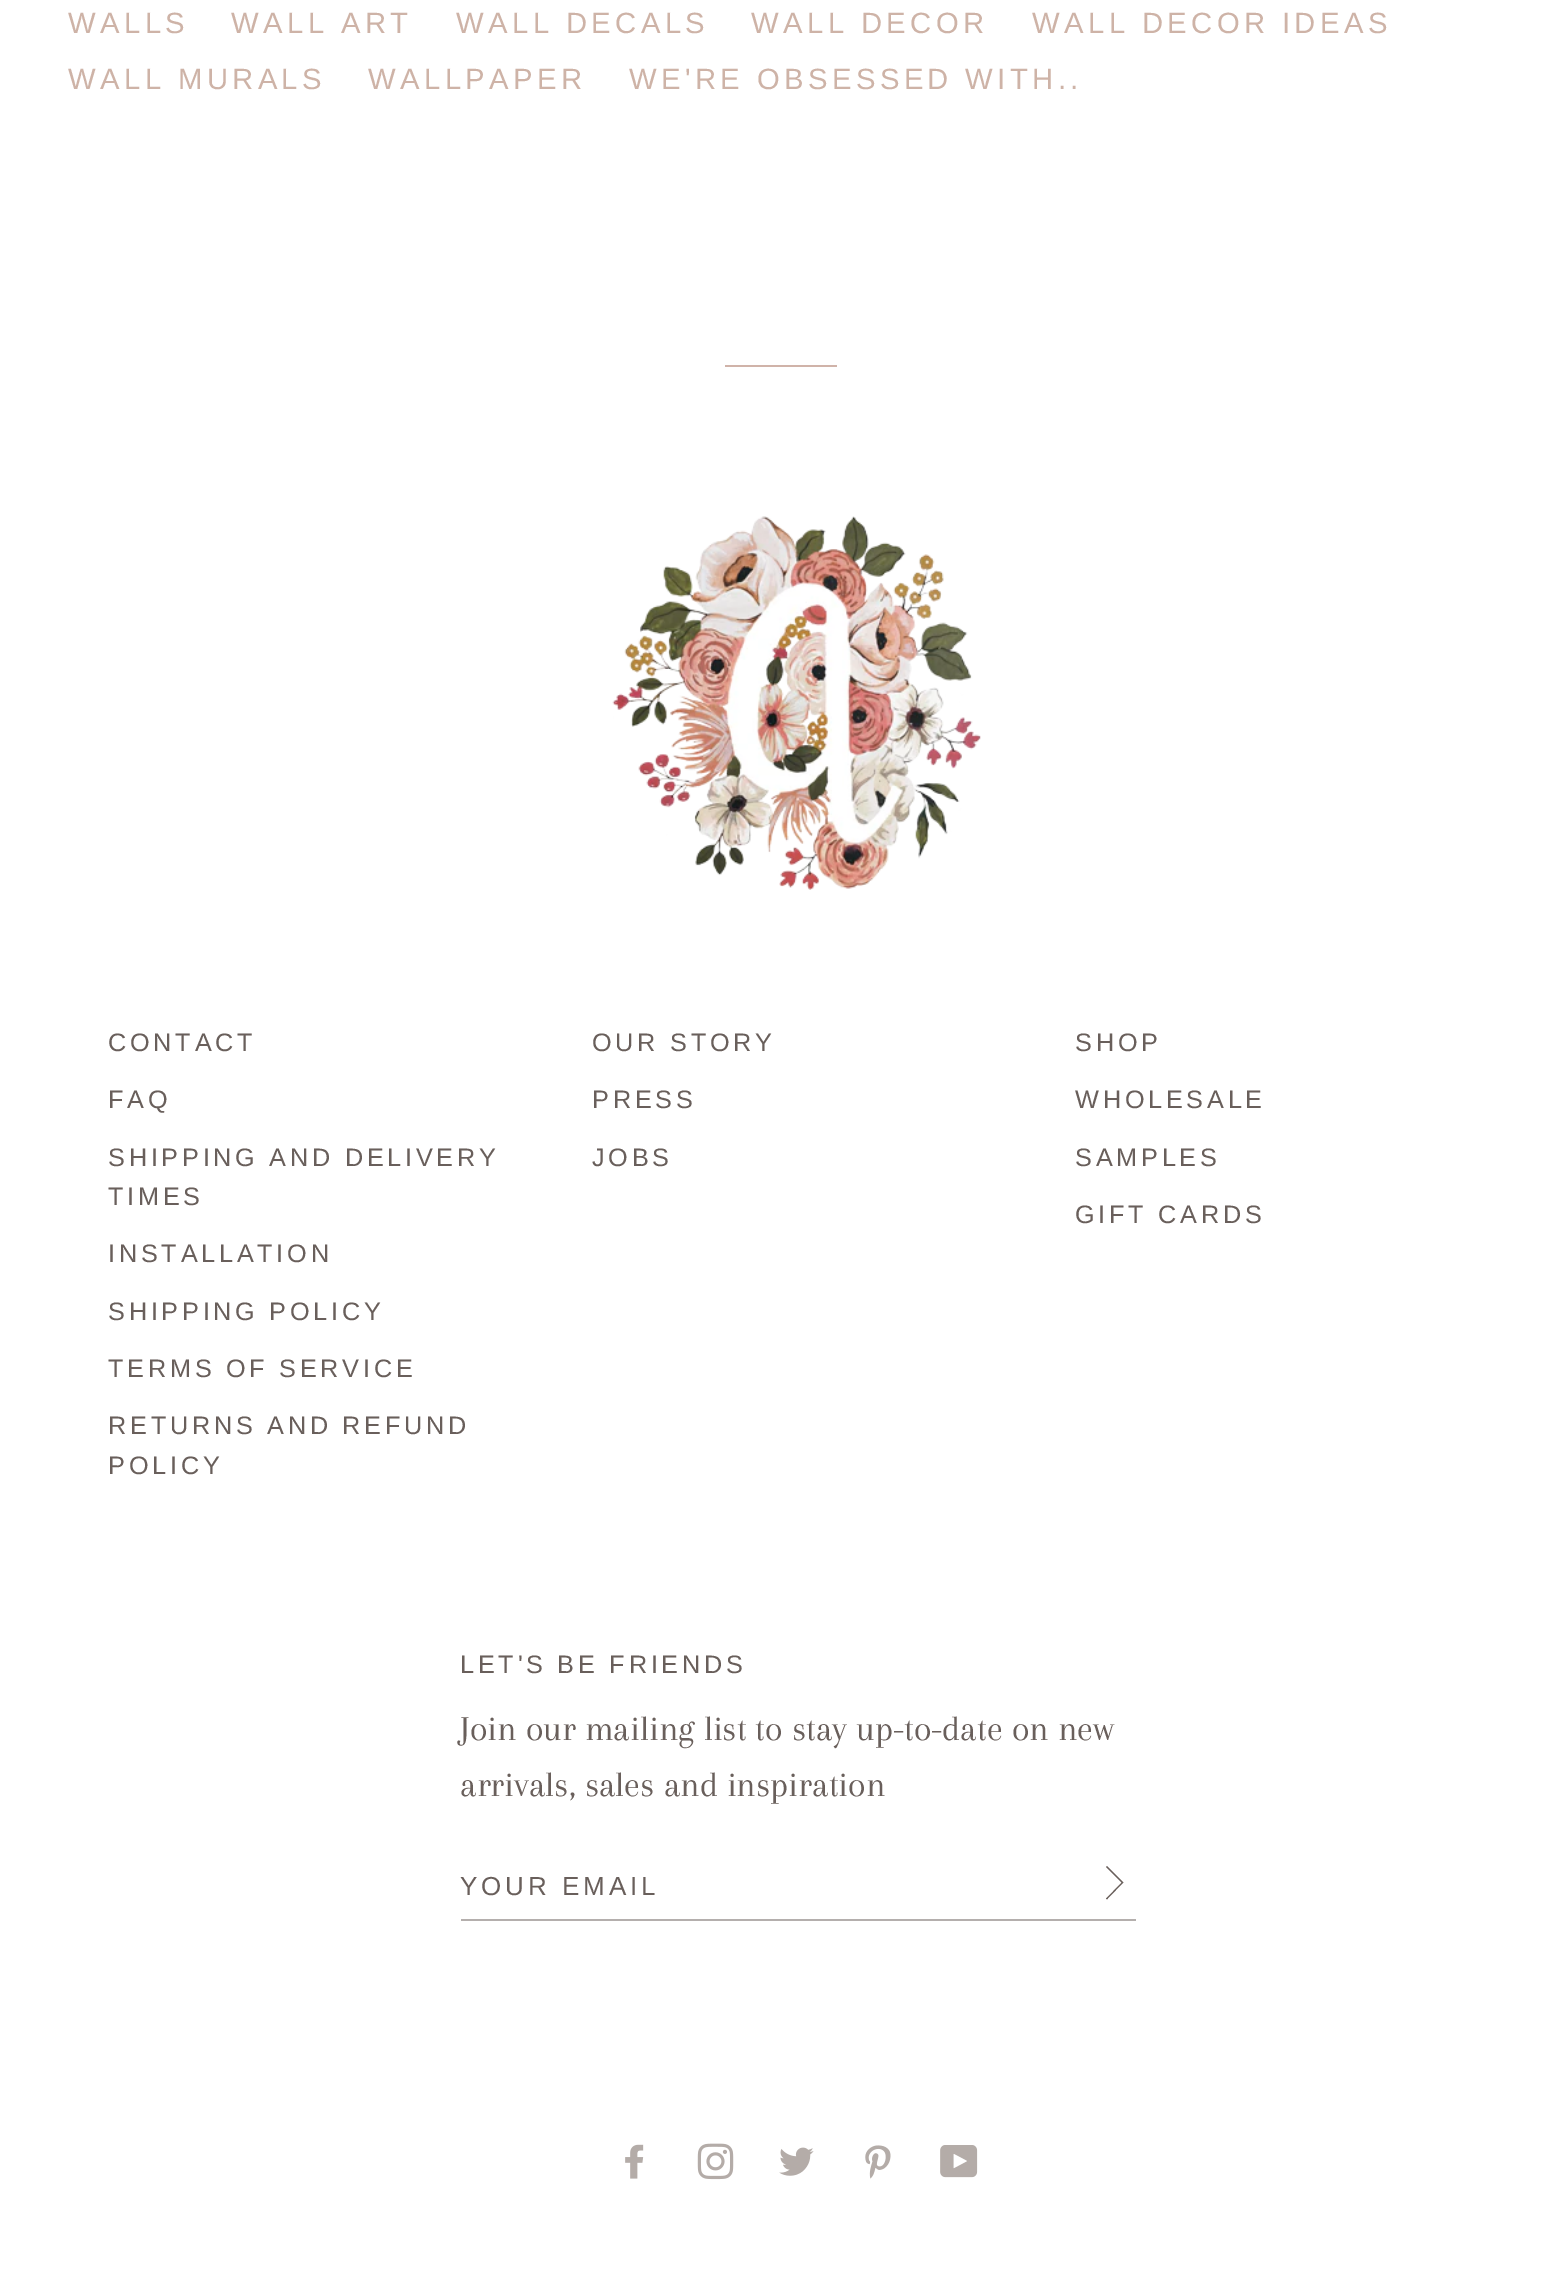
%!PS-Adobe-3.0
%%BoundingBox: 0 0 1559 2286
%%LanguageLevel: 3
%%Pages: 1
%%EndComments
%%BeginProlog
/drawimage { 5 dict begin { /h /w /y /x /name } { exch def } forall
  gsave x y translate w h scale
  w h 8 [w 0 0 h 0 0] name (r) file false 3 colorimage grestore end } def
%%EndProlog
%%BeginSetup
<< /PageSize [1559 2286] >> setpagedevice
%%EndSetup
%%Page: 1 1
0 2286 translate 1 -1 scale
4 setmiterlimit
1 setgray
0 0 1559 2286 rectfill
0.816 0.702 0.663 setrgbcolor
725 365 112 2 rectfill
(images/1.raw) 612 516 369 374 drawimage
0.706 0.686 0.678 setrgbcolor
461 1919 675 2 rectfill
0.412 0.373 0.357 setrgbcolor
1.1 setlinewidth
newpath 1106.5 1866.5 moveto 1122.5 1882.5 lineto 1106.5 1899 lineto stroke
(images/2.raw) 625 2144 19 35 drawimage
(images/3.raw) 697 2143 37 37 drawimage
(images/4.raw) 779 2147 35 29 drawimage
(images/5.raw) 865 2145 26 34 drawimage
(images/6.raw) 940 2145 38 33 drawimage
/LiberationSans-Regular [29.25 0 0 -29.25 0 0] selectfont
0.808 0.702 0.655 setrgbcolor
68 33 moveto 4.4 0 (WALLS) ashow
231 33 moveto 4.4 0 (WALL ART) ashow
456 33 moveto 4.4 0 (WALL DECALS) ashow
751 33 moveto 4.4 0 (WALL DECOR) ashow
1032 33 moveto 4.4 0 (WALL DECOR IDEAS) ashow
68 89 moveto 4.4 0 (WALL MURALS) ashow
368 89 moveto 4.4 0 (WALLPAPER) ashow
629 89 moveto 4.4 0 (WE'RE OBSESSED WITH..) ashow
/LiberationSans-Regular [25.25 0 0 -25.25 0 0] selectfont
0.412 0.373 0.357 setrgbcolor
108 1051 moveto 3.75 0 (CONTACT) ashow
108 1108 moveto 3.75 0 (FAQ) ashow
108 1166 moveto 3.75 0 (SHIPPING AND DELIVERY) ashow
108 1205 moveto 3.75 0 (TIMES) ashow
108 1262 moveto 3.75 0 (INSTALLATION) ashow
108 1320 moveto 3.75 0 (SHIPPING POLICY) ashow
108 1377 moveto 3.75 0 (TERMS OF SERVICE) ashow
108 1434 moveto 3.75 0 (RETURNS AND REFUND) ashow
108 1474 moveto 3.75 0 (POLICY) ashow
592 1051 moveto 3.75 0 (OUR STORY) ashow
592 1108 moveto 3.75 0 (PRESS) ashow
592 1166 moveto 3.75 0 (JOBS) ashow
1075 1051 moveto 3.75 0 (SHOP) ashow
1075 1108 moveto 3.75 0 (WHOLESALE) ashow
1075 1166 moveto 3.75 0 (SAMPLES) ashow
1075 1223 moveto 3.75 0 (GIFT CARDS) ashow
460 1673 moveto 3.75 0 (LET'S BE FRIENDS) ashow
/Arapey-Regular [36 0 0 -36 0 0] selectfont
460 1740 moveto (Join our mailing list to stay up-to-date on new) show
460 1796 moveto (arrivals, sales and inspiration) show
/LiberationSans-Regular [26 0 0 -26 0 0] selectfont
460 1895 moveto 3.9 0 (YOUR EMAIL) ashow
showpage
%%EOF
